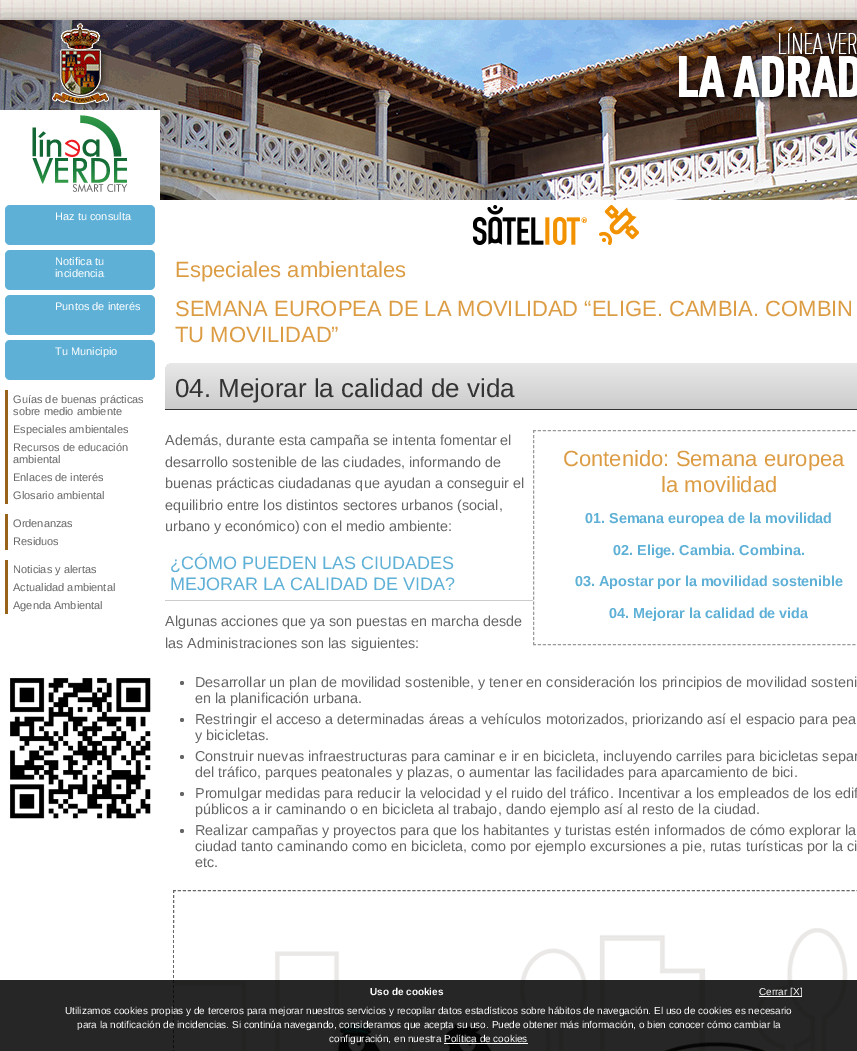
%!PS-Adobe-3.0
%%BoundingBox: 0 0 857 1051
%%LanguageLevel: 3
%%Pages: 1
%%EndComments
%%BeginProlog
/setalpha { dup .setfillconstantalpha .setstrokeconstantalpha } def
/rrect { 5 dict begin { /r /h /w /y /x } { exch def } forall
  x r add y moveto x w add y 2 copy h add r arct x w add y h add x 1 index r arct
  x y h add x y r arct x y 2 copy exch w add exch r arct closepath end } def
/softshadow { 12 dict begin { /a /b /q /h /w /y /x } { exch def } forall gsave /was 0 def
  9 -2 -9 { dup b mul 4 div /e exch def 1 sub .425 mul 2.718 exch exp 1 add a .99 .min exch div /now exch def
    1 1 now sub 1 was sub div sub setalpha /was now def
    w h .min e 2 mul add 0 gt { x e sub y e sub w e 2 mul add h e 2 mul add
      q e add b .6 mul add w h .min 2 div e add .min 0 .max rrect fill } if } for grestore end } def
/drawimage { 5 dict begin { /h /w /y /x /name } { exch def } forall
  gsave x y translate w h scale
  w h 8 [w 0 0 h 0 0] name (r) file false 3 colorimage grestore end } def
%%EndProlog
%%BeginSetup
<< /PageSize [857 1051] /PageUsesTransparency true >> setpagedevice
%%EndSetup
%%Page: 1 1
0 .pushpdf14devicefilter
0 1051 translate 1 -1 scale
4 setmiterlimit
1 setgray
0 0 857 1051 rectfill
(images/1.raw) 0 0 857 20 drawimage
0 setgray
0 20 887 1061 0 10 0.4 softshadow
1 setgray
0 110 857 941 rectfill
(images/2.raw) 0 20 857 90 drawimage
(images/3.raw) 32 115 96 77 drawimage
(images/4.raw) 160 110 697 90 drawimage
(images/5.raw) 473 205 166 40 drawimage
0.369 0.69 0.839 setrgbcolor
5 205 150 40 5 rrect fill
5 250 150 40 5 rrect fill
5 295 150 40 5 rrect fill
5 340 150 40 5 rrect fill
0.592 0.388 0.106 setrgbcolor
5 390 3 114 rectfill
5 514 3 36 rectfill
5 560 3 54 rectfill
(images/6.raw) 10 678 141 141 drawimage
gsave newpath 173 363 moveto 857 363 lineto 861.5 363 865 366.5 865 371 curveto 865 409 lineto 165 409 lineto 165 371 lineto 165 366.5 168.5 363 173 363 curveto closepath clip newpath
<< /ShadingType 2 /ColorSpace /DeviceRGB /Coords [530 363 530 409] /Extend [true true] /Function << /FunctionType 2 /Domain [0 1] /C0 [0.91 0.91 0.91] /C1 [0.8 0.8 0.8] /N 1 >> >> shfill grestore
0.2 setgray
165 409 692 1 rectfill
0.6 setgray
[3 1.99] 0 setdash
newpath 533 430.5 moveto 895 430.5 lineto stroke
newpath 533 644.5 moveto 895 644.5 lineto stroke
[3 2.05] 0 setdash
newpath 533.5 430 moveto 533.5 645 lineto stroke
0.8 setgray
165 600 368 1 rectfill
0.4 setgray
newpath 182 683 2 0 360 arc closepath fill
newpath 182 720 2 0 360 arc closepath fill
newpath 182 757 2 0 360 arc closepath fill
newpath 182 794 2 0 360 arc closepath fill
newpath 182 831 2 0 360 arc closepath fill
[3 1.99] 0 setdash
newpath 173 890.5 moveto 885 890.5 lineto stroke
[3 2] 0 setdash
newpath 173.5 890 moveto 173.5 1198 lineto stroke
(images/7.raw) 174 928 674 123 drawimage
0.85 setalpha
0 setgray
0 980 857 71 rectfill
1 setalpha
1 setgray
759 996 43 1 rectfill
444 1043 84 1 rectfill
/LiberationSans-Regular [11 0 0 -11 0 0] selectfont
55 220 moveto (Haz tu consulta) show
55 265 moveto (Notifica tu) show
55 277 moveto (incidencia) show
55 310 moveto (Puntos de interés) show
55 355 moveto (Tu Municipio) show
0.4 setgray
13 403 moveto (Guías de buenas prácticas) show
13 415 moveto (sobre medio ambiente) show
13 433 moveto (Especiales ambientales) show
13 451 moveto (Recursos de educación) show
13 463 moveto (ambiental) show
13 481 moveto (Enlaces de interés) show
13 499 moveto (Glosario ambiental) show
13 527 moveto (Ordenanzas) show
13 545 moveto (Residuos) show
13 573 moveto (Noticias y alertas) show
13 591 moveto (Actualidad ambiental) show
13 609 moveto (Agenda Ambiental) show
/LiberationSans-Regular [22 0 0 -22 0 0] selectfont
0.859 0.612 0.267 setrgbcolor
175 277 moveto (Especiales ambientales) show
175 316 moveto (SEMANA EUROPEA DE LA MOVILIDAD “ELIGE. CAMBIA. COMBIN) show
175 342 moveto (TU MOVILIDAD”) show
/LiberationSans-Regular [26 0 0 -26 0 0] selectfont
0.2 setgray
175 397 moveto (04. Mejorar la calidad de vida) show
/LiberationSans-Regular [14.4 0 0 -14.4 0 0] selectfont
0.4 setgray
165 445 moveto (Además, durante esta campaña se intenta fomentar el) show
165 467 moveto (desarrollo sostenible de las ciudades, informando de) show
165 488 moveto (buenas prácticas ciudadanas que ayudan a conseguir el) show
165 510 moveto (equilibrio entre los distintos sectores urbanos \(social,) show
165 531 moveto (urbano y económico\) con el medio ambiente:) show
/LiberationSans-Regular [22 0 0 -22 0 0] selectfont
0.859 0.612 0.267 setrgbcolor
563 466 moveto (Contenido: Semana europea) show
661 492 moveto (la movilidad) show
/LiberationSans-Bold [14.4 0 0 -14.4 0 0] selectfont
0.369 0.69 0.839 setrgbcolor
585 523 moveto (01. Semana europea de la movilidad) show
613 555 moveto (02. Elige. Cambia. Combina.) show
575 586 moveto (03. Apostar por la movilidad sostenible) show
609 618 moveto (04. Mejorar la calidad de vida) show
/LiberationSans-Regular [18 0 0 -18 0 0] selectfont
170 569 moveto (¿CÓMO PUEDEN LAS CIUDADES) show
170 590 moveto (MEJORAR LA CALIDAD DE VIDA?) show
/LiberationSans-Regular [14.4 0 0 -14.4 0 0] selectfont
0.4 setgray
165 626 moveto (Algunas acciones que ya son puestas en marcha desde) show
165 648 moveto (las Administraciones son las siguientes:) show
195 687 moveto (Desarrollar un plan de movilidad sostenible, y tener en consideración los principios de movilidad sosteni) show
195 703 moveto (en la planificación urbana.) show
195 724 moveto (Restringir el acceso a determinadas áreas a vehículos motorizados, priorizando así el espacio para pea) show
195 740 moveto (y bicicletas.) show
195 761 moveto (Construir nuevas infraestructuras para caminar e ir en bicicleta, incluyendo carriles para bicicletas separ) show
195 777 moveto (del tráfico, parques peatonales y plazas, o aumentar las facilidades para aparcamiento de bici.) show
195 798 moveto (Promulgar medidas para reducir la velocidad y el ruido del tráfico. Incentivar a los empleados de los edif) show
195 814 moveto (públicos a ir caminando o en bicicleta al trabajo, dando ejemplo así al resto de la ciudad.) show
195 835 moveto (Realizar campañas y proyectos para que los habitantes y turistas estén informados de cómo explorar la) show
195 851 moveto (ciudad tanto caminando como en bicicleta, como por ejemplo excursiones a pie, rutas turísticas por la ci) show
195 867 moveto (etc.) show
/LiberationSans-Bold [10 0 0 -10 0 0] selectfont
1 setgray
370 995 moveto (Uso de cookies) show
/LiberationSans-Regular [10 0 0 -10 0 0] selectfont
759 995 moveto (Cerrar [X]) show
65 1014 moveto (Utilizamos cookies propias y de terceros para mejorar nuestros servicios y recopilar datos estadísticos sobre hábitos de navegación. El uso de cookies es necesario) show
77 1028 moveto (para la notificación de incidencias. Si continúa navegando, consideramos que acepta su uso. Puede obtener más información, o bien conocer cómo cambiar la) show
329 1042 moveto (configuración, en nuestra Política de cookies) show
.poppdf14devicefilter showpage
%%EOF
